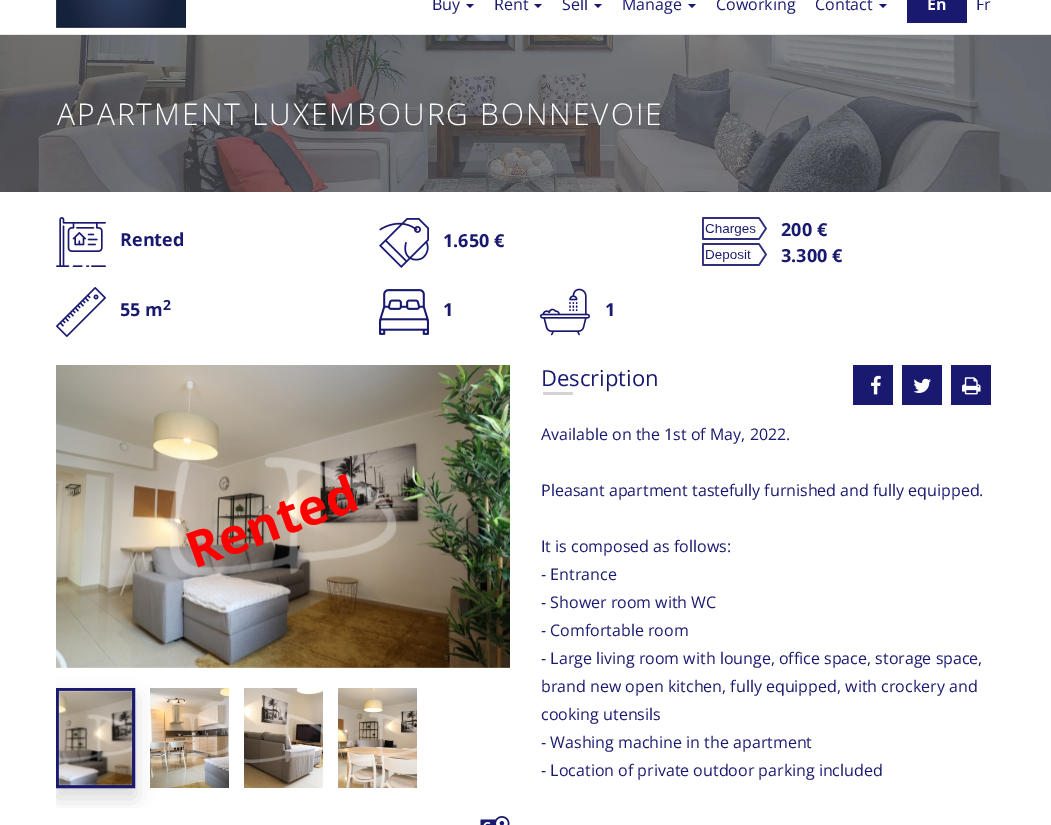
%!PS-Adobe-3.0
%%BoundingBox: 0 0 1051 825
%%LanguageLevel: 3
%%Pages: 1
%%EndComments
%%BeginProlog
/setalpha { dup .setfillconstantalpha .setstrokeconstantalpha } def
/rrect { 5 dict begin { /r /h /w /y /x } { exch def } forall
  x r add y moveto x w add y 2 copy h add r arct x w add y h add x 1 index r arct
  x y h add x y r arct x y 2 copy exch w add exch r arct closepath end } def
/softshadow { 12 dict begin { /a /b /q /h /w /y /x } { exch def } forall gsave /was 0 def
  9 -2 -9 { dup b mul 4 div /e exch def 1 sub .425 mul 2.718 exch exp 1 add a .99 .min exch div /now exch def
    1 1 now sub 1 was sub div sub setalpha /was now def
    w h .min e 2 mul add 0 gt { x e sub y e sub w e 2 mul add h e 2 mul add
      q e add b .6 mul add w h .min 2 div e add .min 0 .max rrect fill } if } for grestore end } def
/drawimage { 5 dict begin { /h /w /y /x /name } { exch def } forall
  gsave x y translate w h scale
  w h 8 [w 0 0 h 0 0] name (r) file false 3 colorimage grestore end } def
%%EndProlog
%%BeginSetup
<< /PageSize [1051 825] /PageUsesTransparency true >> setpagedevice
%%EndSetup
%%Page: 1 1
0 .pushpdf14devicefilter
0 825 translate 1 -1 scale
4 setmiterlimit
1 setgray
0 0 1051 825 rectfill
(images/1.raw) 56 0 130 28 drawimage
0.906 setgray
0 34 1051 1 rectfill
0.098 0.098 0.439 setrgbcolor
newpath 466 4 moveto 474 4 lineto 470 8 lineto closepath fill
newpath 534 4 moveto 542 4 lineto 538 8 lineto closepath fill
newpath 594 4 moveto 602 4 lineto 598 8 lineto closepath fill
newpath 688 4 moveto 696 4 lineto 692 8 lineto closepath fill
newpath 879 4 moveto 887 4 lineto 883 8 lineto closepath fill
907 0 60 23 rectfill
(images/2.raw) 0 35 1051 157 drawimage
(images/3.raw) 56 217 50 50 drawimage
(images/4.raw) 379 218 50 50 drawimage
(images/5.raw) 702 217 65 23 drawimage
(images/6.raw) 702 243 65 23 drawimage
(images/7.raw) 56 287 50 50 drawimage
(images/8.raw) 379 289 50 46 drawimage
(images/9.raw) 540 288 50 48 drawimage
(images/10.raw) 56 365 454 303 drawimage
gsave
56 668 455 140 rectclip
0 setgray
56 698 79 100 0 10 0.15 softshadow
grestore
3 setlinewidth
57.5 689.5 76 97 rectstroke
(images/11.raw) 58 690 75 96 drawimage
(images/12.raw) 150 688 79 100 drawimage
(images/13.raw) 244 688 79 100 drawimage
(images/14.raw) 338 688 79 100 drawimage
(images/15.raw) 480 816 30 9 drawimage
0.827 setgray
543 392 30 3 rectfill
0.098 0.098 0.439 setrgbcolor
853 365 40 40 rectfill
(images/16.raw) 871 375 10 20 drawimage
902 365 40 40 rectfill
(images/17.raw) 913 378 18 15 drawimage
951 365 40 40 rectfill
(images/18.raw) 962 377 19 18 drawimage
/OpenSans-Regular [16 0 0 -16 0 0] selectfont
432 10 moveto (Buy) show
494 10 moveto (Rent) show
562 10 moveto (Sell) show
622 10 moveto (Manage) show
716 10 moveto (Coworking) show
815 10 moveto (Contact) show
/OpenSans-Bold [16 0 0 -16 0 0] selectfont
1 setgray
927 10 moveto (En) show
/OpenSans-Regular [16 0 0 -16 0 0] selectfont
0.098 0.098 0.439 setrgbcolor
976 10 moveto (Fr) show
/OpenSans-Light [30 0 0 -30 0 0] selectfont
1 setgray
57 125 moveto 2 0 (APARTMENT LUXEMBOURG BONNEVOIE) ashow
/OpenSans-Bold [18 0 0 -18 0 0] selectfont
0.098 0.098 0.439 setrgbcolor
120 246 moveto (Rented) show
443 247 moveto (1.650 €) show
781 236 moveto (200 €) show
781 262 moveto (3.300 €) show
120 316 moveto (55 m) show
/OpenSans-Bold [14 0 0 -14 0 0] selectfont
163 310 moveto (2) show
/OpenSans-Bold [18 0 0 -18 0 0] selectfont
443 316 moveto (1) show
605 316 moveto (1) show
/OpenSans-Bold [50 0 0 -50 0 0] selectfont
1 0 0 setrgbcolor
gsave 194 569 translate -20 rotate 0 0 moveto (Rented) show grestore
/OpenSans-Regular [22 0 0 -22 0 0] selectfont
0.098 0.098 0.439 setrgbcolor
541 386 moveto (Description) show
/OpenSans-Regular [16 0 0 -16 0 0] selectfont
541 440 moveto (Available on the 1st of May, 2022.) show
541 496 moveto (Pleasant apartment tastefully furnished and fully equipped.) show
541 552 moveto (It is composed as follows:) show
541 580 moveto (- Entrance) show
541 608 moveto (- Shower room with WC) show
541 636 moveto (- Comfortable room) show
541 664 moveto (- Large living room with lounge, office space, storage space,) show
541 692 moveto (brand new open kitchen, fully equipped, with crockery and) show
541 720 moveto (cooking utensils) show
541 748 moveto (- Washing machine in the apartment) show
541 776 moveto (- Location of private outdoor parking included) show
.poppdf14devicefilter showpage
%%EOF
